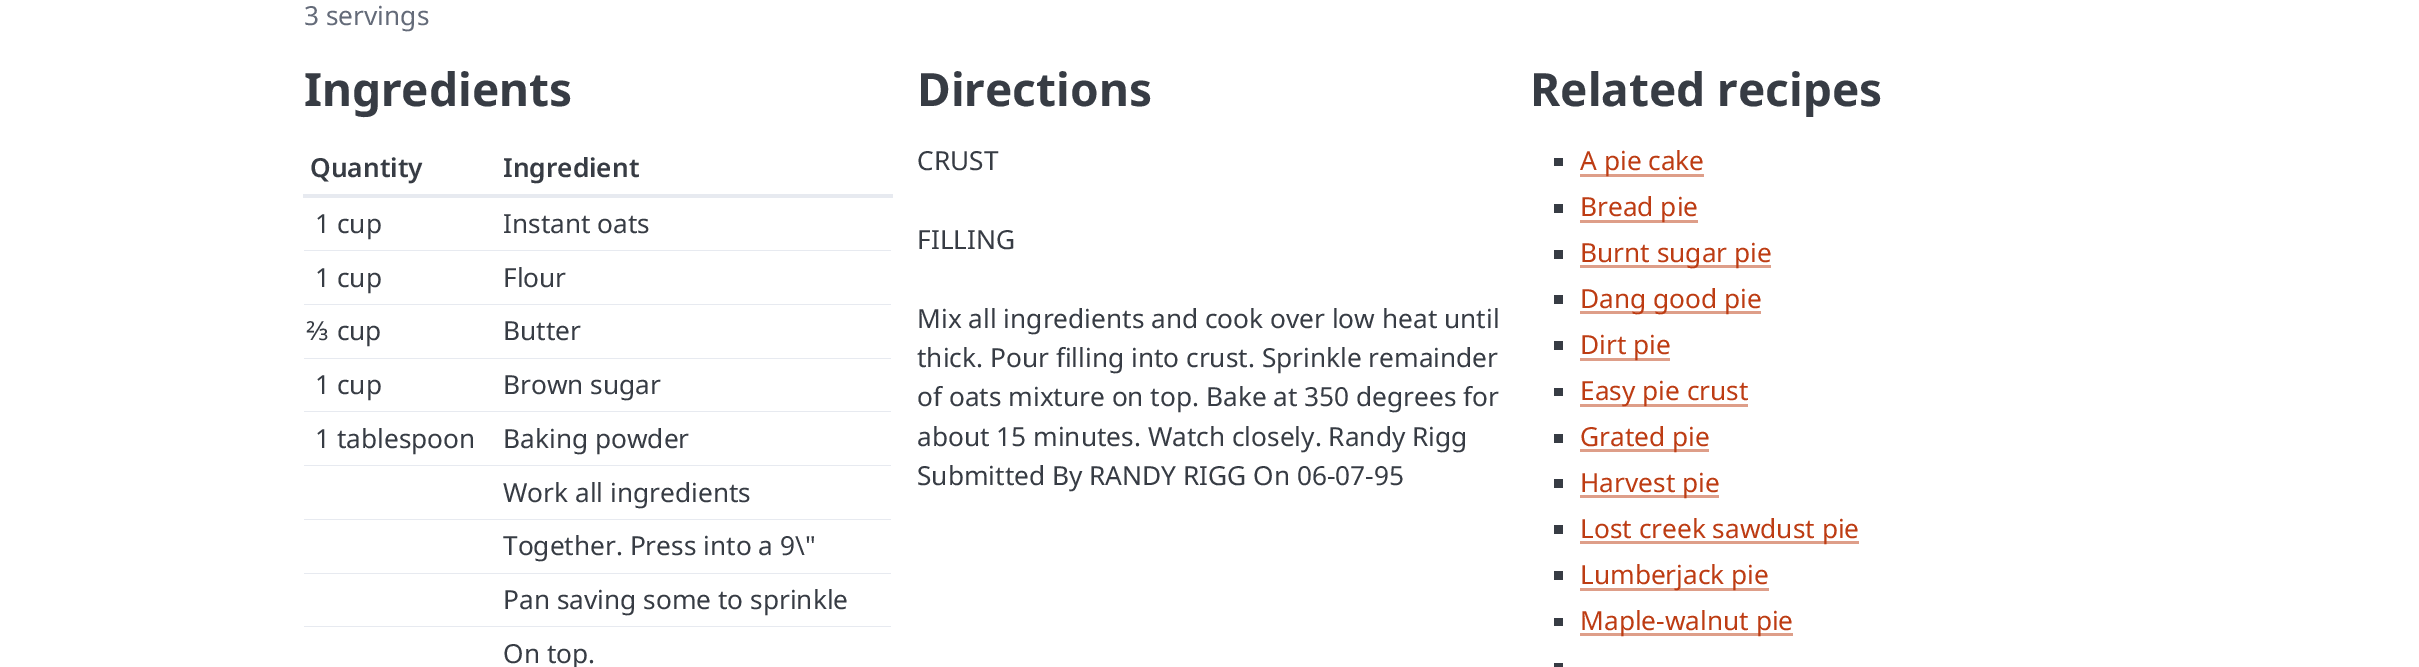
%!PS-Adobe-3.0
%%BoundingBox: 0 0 2419 667
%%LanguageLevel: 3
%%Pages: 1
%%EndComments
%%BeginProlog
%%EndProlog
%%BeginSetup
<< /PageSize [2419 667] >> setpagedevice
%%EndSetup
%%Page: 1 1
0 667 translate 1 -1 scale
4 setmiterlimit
1 setgray
0 0 2419 667 rectfill
0.906 0.918 0.941 setrgbcolor
303 194 590 4 rectfill
304 250 587 1 rectfill
304 304 587 1 rectfill
304 358 587 1 rectfill
304 411 587 1 rectfill
304 465 587 1 rectfill
304 519 587 1 rectfill
304 573 587 1 rectfill
304 626 587 1 rectfill
0.216 0.235 0.267 setrgbcolor
1554 158 9 8 rectfill
0.871 0.62 0.537 setrgbcolor
1580 174 124 3 rectfill
0.216 0.235 0.267 setrgbcolor
1554 204 9 9 rectfill
0.871 0.62 0.537 setrgbcolor
1580 220 118 3 rectfill
0.216 0.235 0.267 setrgbcolor
1554 250 9 9 rectfill
0.871 0.62 0.537 setrgbcolor
1580 265 191 3 rectfill
0.216 0.235 0.267 setrgbcolor
1554 295 9 9 rectfill
0.871 0.62 0.537 setrgbcolor
1580 311 181 3 rectfill
0.216 0.235 0.267 setrgbcolor
1554 341 9 9 rectfill
0.871 0.62 0.537 setrgbcolor
1580 358 90 3 rectfill
0.216 0.235 0.267 setrgbcolor
1554 388 9 8 rectfill
0.871 0.62 0.537 setrgbcolor
1580 404 168 3 rectfill
0.216 0.235 0.267 setrgbcolor
1554 434 9 9 rectfill
0.871 0.62 0.537 setrgbcolor
1580 449 129 3 rectfill
0.216 0.235 0.267 setrgbcolor
1554 479 9 9 rectfill
0.871 0.62 0.537 setrgbcolor
1580 495 139 3 rectfill
0.216 0.235 0.267 setrgbcolor
1554 525 9 9 rectfill
0.871 0.62 0.537 setrgbcolor
1580 541 279 3 rectfill
0.216 0.235 0.267 setrgbcolor
1554 571 9 9 rectfill
0.871 0.62 0.537 setrgbcolor
1580 588 189 3 rectfill
0.216 0.235 0.267 setrgbcolor
1554 618 9 8 rectfill
0.871 0.62 0.537 setrgbcolor
1580 633 213 3 rectfill
0.216 0.235 0.267 setrgbcolor
1554 663 9 4 rectfill
/NotoSans-Regular [26.25 0 0 -26.25 0 0] selectfont
0.392 0.42 0.475 setrgbcolor
304 25 moveto (3 servings) show
/NotoSans-Bold [46 0 0 -46 0 0] selectfont
0.216 0.235 0.267 setrgbcolor
304 106 moveto (Ingredients) show
/NotoSans-SemiBold [26.25 0 0 -26.25 0 0] selectfont
310 177 moveto (Quantity) show
503 177 moveto (Ingredient) show
/NotoSans-Regular [26.25 0 0 -26.25 0 0] selectfont
315 233 moveto (1 cup) show
503 233 moveto (Instant oats) show
315 287 moveto (1 cup) show
503 287 moveto (Flour) show
306 340 moveto (⅔ cup) show
503 340 moveto (Butter) show
315 394 moveto (1 cup) show
503 394 moveto (Brown sugar) show
315 448 moveto (1 tablespoon) show
503 448 moveto (Baking powder) show
503 502 moveto (Work all ingredients) show
503 555 moveto (Together. Press into a 9\\") show
503 609 moveto (Pan saving some to sprinkle) show
503 663 moveto (On top.) show
/NotoSans-Bold [46 0 0 -46 0 0] selectfont
917 106 moveto (Directions) show
/NotoSans-Regular [26.25 0 0 -26.25 0 0] selectfont
917 170 moveto (CRUST) show
917 249 moveto (FILLING) show
917 328 moveto (Mix all ingredients and cook over low heat until) show
917 367 moveto (thick. Pour filling into crust. Sprinkle remainder) show
917 406 moveto (of oats mixture on top. Bake at 350 degrees for) show
917 446 moveto (about 15 minutes. Watch closely. Randy Rigg) show
917 485 moveto (Submitted By RANDY RIGG On 06-07-95) show
/NotoSans-Bold [46 0 0 -46 0 0] selectfont
1530 106 moveto (Related recipes) show
/NotoSans-Regular [26.25 0 0 -26.25 0 0] selectfont
0.741 0.235 0.075 setrgbcolor
1580 170 moveto (A pie cake) show
1580 216 moveto (Bread pie) show
1580 262 moveto (Burnt sugar pie) show
1580 308 moveto (Dang good pie) show
1580 354 moveto (Dirt pie) show
1580 400 moveto (Easy pie crust) show
1580 446 moveto (Grated pie) show
1580 492 moveto (Harvest pie) show
1580 538 moveto (Lost creek sawdust pie) show
1580 584 moveto (Lumberjack pie) show
1580 630 moveto (Maple-walnut pie) show
showpage
%%EOF
